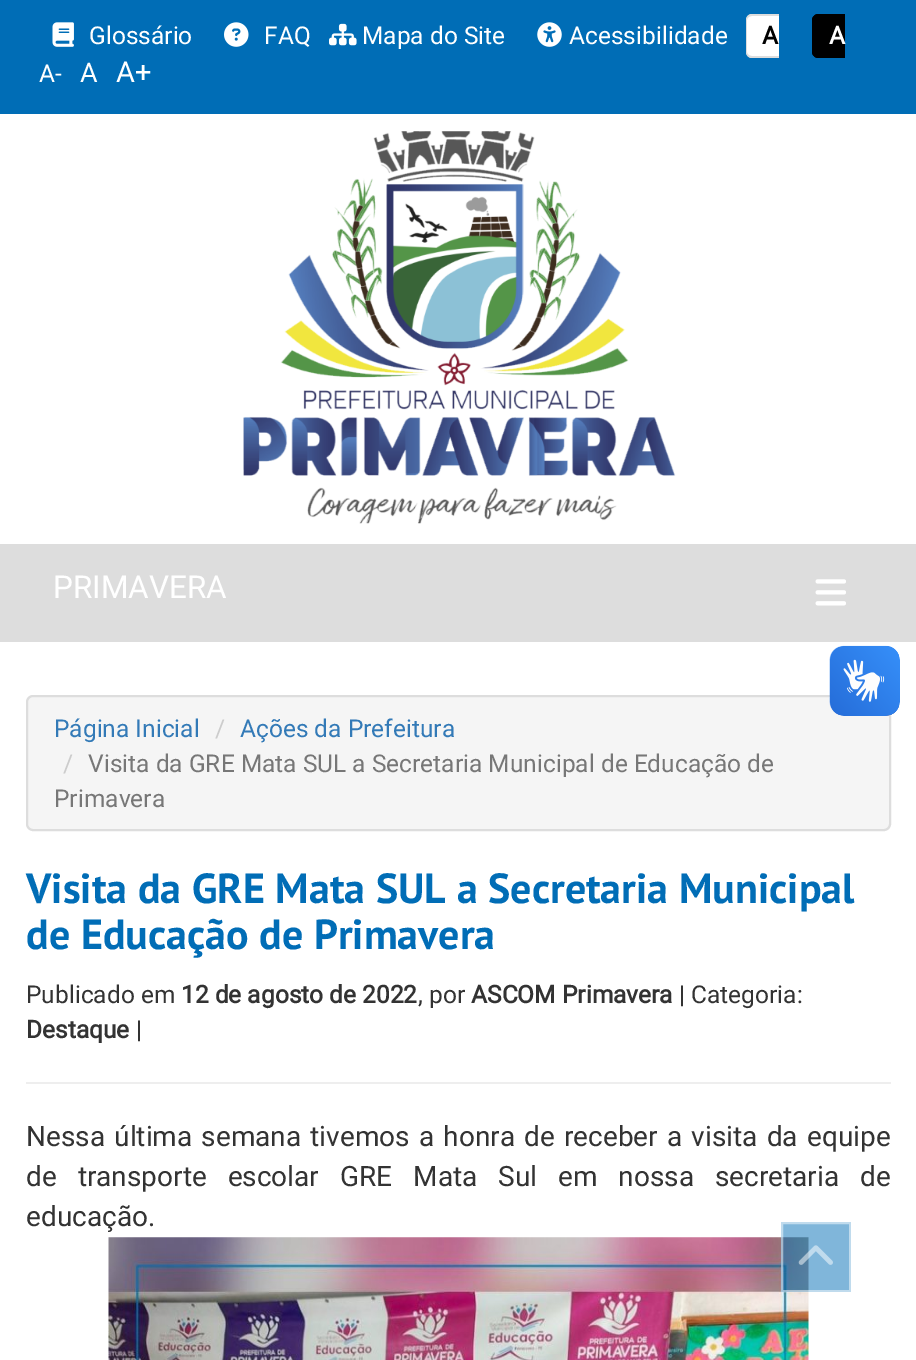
%!PS-Adobe-3.0
%%BoundingBox: 0 0 916 1360
%%LanguageLevel: 3
%%Pages: 1
%%EndComments
%%BeginProlog
/setalpha { dup .setfillconstantalpha .setstrokeconstantalpha } def
/rrect { 5 dict begin { /r /h /w /y /x } { exch def } forall
  x r add y moveto x w add y 2 copy h add r arct x w add y h add x 1 index r arct
  x y h add x y r arct x y 2 copy exch w add exch r arct closepath end } def
/drawimage { 5 dict begin { /h /w /y /x /name } { exch def } forall
  gsave x y translate w h scale
  w h 8 [w 0 0 h 0 0] name (r) file false 3 colorimage grestore end } def
%%EndProlog
%%BeginSetup
<< /PageSize [916 1360] /PageUsesTransparency true >> setpagedevice
%%EndSetup
%%Page: 1 1
0 .pushpdf14devicefilter
0 1360 translate 1 -1 scale
4 setmiterlimit
1 setgray
0 0 916 1360 rectfill
0 0.427 0.714 setrgbcolor
0 0 916 114 rectfill
(images/1.raw) 52 22 22 25 drawimage
(images/2.raw) 224 22 25 25 drawimage
(images/3.raw) 329 23 28 23 drawimage
(images/4.raw) 537 22 25 25 drawimage
1 setgray
newpath 753 14 moveto 779 14 lineto 779 58 lineto 753 58 lineto 749 58 746 55 746 51 curveto 746 21 lineto 746 17 749 14 753 14 curveto closepath fill
0.867 setgray
newpath 752 14 moveto 779 14 lineto 779 58 lineto 752 58 lineto 748 58 746 55 746 52 curveto 746 20 lineto 746 17 748 14 752 14 curveto closepath 752 16 moveto 779 16 lineto 779 56 lineto 752 56 lineto 749 56 747 54 747 52 curveto 747 20 lineto 747 18 749 16 752 16 curveto closepath eofill
0 setgray
newpath 819 14 moveto 845 14 lineto 845 58 lineto 819 58 lineto 815 58 812 55 812 51 curveto 812 21 lineto 812 17 815 14 819 14 curveto closepath fill
newpath 818 14 moveto 845 14 lineto 845 58 lineto 818 58 lineto 815 58 812 55 812 52 curveto 812 20 lineto 812 17 815 14 818 14 curveto closepath 818 16 moveto 845 16 lineto 845 56 lineto 818 56 lineto 816 56 814 54 814 52 curveto 814 20 lineto 814 18 816 16 818 16 curveto closepath eofill
(images/5.raw) 243 131 433 393 drawimage
0.867 setgray
0 544 916 98 rectfill
(images/6.raw) 815 579 31 27 drawimage
0.961 setgray
27 696 863 134 6 rrect gsave fill grestore
0.867 setgray
2 setlinewidth
stroke
(images/7.raw) 829 645 71 71 drawimage
(images/8.raw) 830 646 70 70 drawimage
0.933 setgray
26 1082 865 2 rectfill
(images/9.raw) 108 1237 701 123 drawimage
0.5 setalpha
0.004 0.427 0.714 setrgbcolor
781 1222 70 70 rectfill
1 setgray
782 1223 68 68 rectstroke
1 setalpha
(images/10.raw) 798 1245 35 20 drawimage
/Roboto-Regular [24.5 0 0 -24.5 0 0] selectfont
89 44 moveto (Glossário) show
264 44 moveto (FAQ) show
362 44 moveto (Mapa do Site) show
569 44 moveto (Acessibilidade) show
/Roboto-Bold [24.5 0 0 -24.5 0 0] selectfont
0 setgray
762 44 moveto (A) show
1 setgray
829 44 moveto (A) show
/Roboto-Regular [24.5 0 0 -24.5 0 0] selectfont
39 82 moveto (A-) show
/Roboto-Regular [27 0 0 -27 0 0] selectfont
80 82 moveto (A) show
/Roboto-Regular [29 0 0 -29 0 0] selectfont
116 82 moveto (A+) show
/Roboto-Regular [31.5 0 0 -31.5 0 0] selectfont
53 598 moveto (PRIMAVERA) show
/Roboto-Regular [24.5 0 0 -24.5 0 0] selectfont
0.2 0.478 0.718 setrgbcolor
54 737 moveto (Página Inicial) show
0.8 setgray
215 737 moveto (/) show
0.2 0.478 0.718 setrgbcolor
240 737 moveto (Ações da Prefeitura) show
0.8 setgray
63 772 moveto (/) show
0.467 setgray
88 772 moveto (Visita da GRE Mata SUL a Secretaria Municipal de Educação de) show
54 807 moveto (Primavera) show
/PTSans-Bold [42 0 0 -42 0 0] selectfont
0.004 0.427 0.714 setrgbcolor
26 903 moveto (Visita da GRE Mata SUL a Secretaria Municipal) show
26 949 moveto (de Educação de Primavera) show
/Roboto-Regular [24.5 0 0 -24.5 0 0] selectfont
0.2 setgray
26 1003 moveto (Publicado em) show
/Roboto-Bold [24.5 0 0 -24.5 0 0] selectfont
181 1003 moveto (12 de agosto de 2022) show
/Roboto-Regular [24.5 0 0 -24.5 0 0] selectfont
418 1003 moveto (, por) show
/Roboto-Bold [24.5 0 0 -24.5 0 0] selectfont
471 1003 moveto (ASCOM Primavera) show
/Roboto-Regular [24.5 0 0 -24.5 0 0] selectfont
679 1003 moveto (| Categoria:) show
/Roboto-Bold [24.5 0 0 -24.5 0 0] selectfont
26 1038 moveto (Destaque) show
/Roboto-Regular [24.5 0 0 -24.5 0 0] selectfont
136 1038 moveto (|) show
/Roboto-Regular [28 0 0 -28 0 0] selectfont
26 1146 moveto 2.25 0 32 (Nessa última semana tivemos a honra de receber a visita da equipe) widthshow
26 1186 moveto 14 0 32 (de transporte escolar GRE Mata Sul em nossa secretaria de) widthshow
26 1226 moveto (educação.) show
.poppdf14devicefilter showpage
%%EOF
